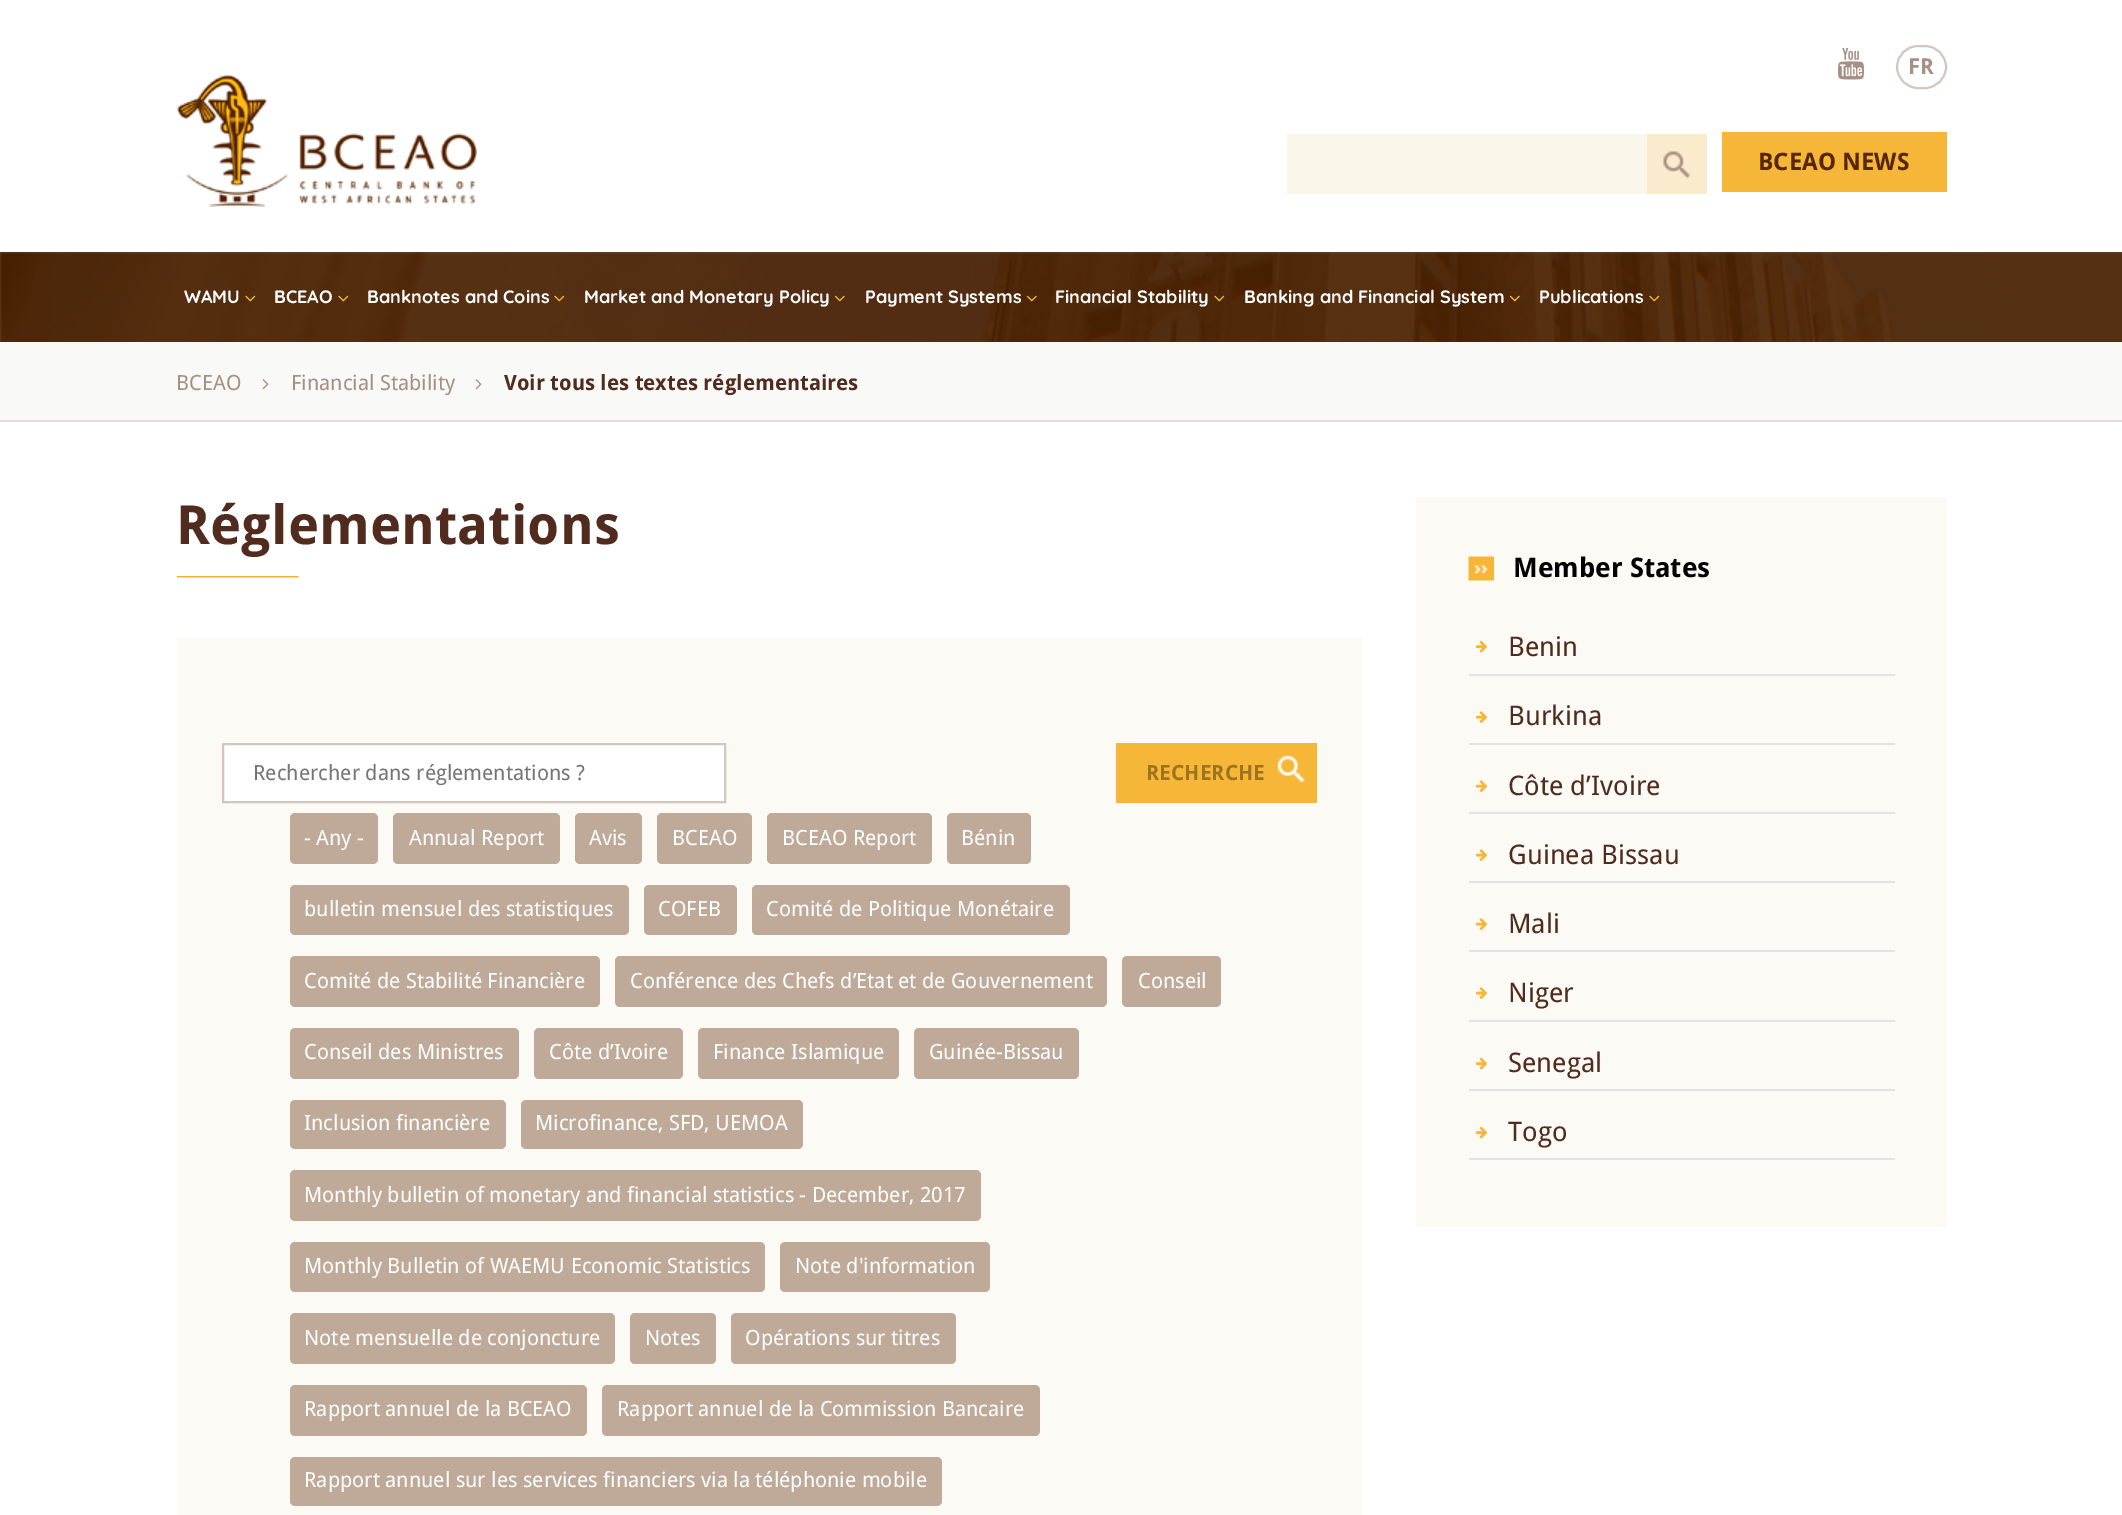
%!PS-Adobe-3.0
%%BoundingBox: 0 0 2122 1515
%%LanguageLevel: 3
%%Pages: 1
%%EndComments
%%BeginProlog
/rrect { 5 dict begin { /r /h /w /y /x } { exch def } forall
  x r add y moveto x w add y 2 copy h add r arct x w add y h add x 1 index r arct
  x y h add x y r arct x y 2 copy exch w add exch r arct closepath end } def
/drawimage { 5 dict begin { /h /w /y /x /name } { exch def } forall
  gsave x y translate w h scale
  w h 8 [w 0 0 h 0 0] name (r) file false 3 colorimage grestore end } def
%%EndProlog
%%BeginSetup
<< /PageSize [2122 1515] >> setpagedevice
%%EndSetup
%%Page: 1 1
0 1515 translate 1 -1 scale
4 setmiterlimit
1 setgray
0 0 2122 1515 rectfill
(images/1.raw) 1838 48 26 32 drawimage
0.827 0.78 0.757 setrgbcolor
2 setlinewidth
1897 46 49 42 21 rrect stroke
0.98 0.965 0.918 setrgbcolor
1287 134 360 60 rectfill
0.976 0.922 0.8 setrgbcolor
1647 134 60 60 rectfill
(images/2.raw) 1662 150 29 29 drawimage
(images/3.raw) 177 75 300 132 drawimage
(images/4.raw) 0 252 2122 90 drawimage
0.965 0.718 0.22 setrgbcolor
1722 132 225 60 rectfill
(images/5.raw) 245 295 11 7 drawimage
(images/6.raw) 338 295 11 7 drawimage
(images/7.raw) 554 295 11 7 drawimage
(images/8.raw) 834 295 11 7 drawimage
(images/9.raw) 1026 295 11 7 drawimage
(images/10.raw) 1214 295 11 7 drawimage
(images/11.raw) 1509 295 11 7 drawimage
(images/12.raw) 1649 295 11 7 drawimage
0.976 0.976 0.973 setrgbcolor
0 342 2122 78 rectfill
0.875 0.863 0.851 setrgbcolor
0 420 2122 2 rectfill
(images/13.raw) 262 379 7 11 drawimage
(images/13.raw) 475 379 7 11 drawimage
(images/14.raw) 177 576 122 2 drawimage
0.988 0.98 0.957 setrgbcolor
177 638 1185 877 rectfill
1 setgray
newpath 223 744 moveto 725 744 lineto 725 802 lineto 223 802 lineto closepath gsave fill grestore
0.835 0.773 0.753 setrgbcolor
stroke
0.965 0.718 0.22 setrgbcolor
1116 743 201 60 rectfill
(images/15.raw) 1276 754 29 29 drawimage
0.749 0.667 0.6 setrgbcolor
290 813 88 51 5 rrect fill
393 813 167 51 5 rrect fill
575 813 67 51 5 rrect fill
657 813 95 51 5 rrect fill
767 813 165 51 5 rrect fill
947 813 84 51 5 rrect fill
290 885 339 50 5 rrect fill
644 885 93 50 5 rrect fill
752 885 318 50 5 rrect fill
290 956 310 51 5 rrect fill
615 956 492 51 5 rrect fill
1122 956 99 51 5 rrect fill
290 1028 229 51 5 rrect fill
534 1028 149 51 5 rrect fill
698 1028 201 51 5 rrect fill
914 1028 165 51 5 rrect fill
290 1100 216 49 5 rrect fill
521 1100 282 49 5 rrect fill
290 1170 691 51 5 rrect fill
290 1242 475 50 5 rrect fill
780 1242 210 50 5 rrect fill
290 1313 325 51 5 rrect fill
630 1313 86 51 5 rrect fill
731 1313 225 51 5 rrect fill
290 1385 297 51 5 rrect fill
602 1385 438 51 5 rrect fill
290 1457 652 49 5 rrect fill
0.988 0.98 0.957 setrgbcolor
1416 497 531 730 rectfill
(images/16.raw) 1468 556 26 25 drawimage
0.894 0.89 0.882 setrgbcolor
1469 674 426 2 rectfill
(images/17.raw) 1476 640 12 13 drawimage
1469 743 426 2 rectfill
(images/18.raw) 1476 711 12 12 drawimage
1469 812 426 2 rectfill
(images/18.raw) 1476 780 12 12 drawimage
1469 881 426 2 rectfill
(images/18.raw) 1476 849 12 12 drawimage
1469 950 426 2 rectfill
(images/18.raw) 1476 918 12 12 drawimage
1469 1020 426 2 rectfill
(images/18.raw) 1476 987 12 12 drawimage
1469 1089 426 2 rectfill
(images/17.raw) 1476 1057 12 13 drawimage
1469 1158 426 2 rectfill
(images/17.raw) 1476 1126 12 13 drawimage
/DroidSans-Bold [22 0 0 -22 0 0] selectfont
0.655 0.561 0.518 setrgbcolor
1908 74 moveto (FR) show
/DroidSans-Bold [24 0 0 -24 0 0] selectfont
0.337 0.149 0 setrgbcolor
1758 170 moveto (BCEAO NEWS) show
/Quicksand-Bold [18 0 0 -18 0 0] selectfont
1 setgray
184 303 moveto (WAMU) show
274 303 moveto (BCEAO) show
367 303 moveto (Banknotes and Coins) show
584 303 moveto (Market and Monetary Policy) show
865 303 moveto (Payment Systems) show
1055 303 moveto (Financial Stability) show
1244 303 moveto (Banking and Financial System) show
1539 303 moveto (Publications) show
/DroidSans-Regular [21 0 0 -21 0 0] selectfont
0.655 0.561 0.518 setrgbcolor
176 390 moveto (BCEAO) show
291 390 moveto (Financial Stability) show
/DroidSans-Bold [21 0 0 -21 0 0] selectfont
0.318 0.169 0.118 setrgbcolor
504 390 moveto (Voir tous les textes réglementaires) show
/DroidSans-Bold [54 0 0 -54 0 0] selectfont
176 544 moveto (Réglementations) show
/DroidSans-Regular [21 0 0 -21 0 0] selectfont
0.459 setgray
253 780 moveto (Rechercher dans réglementations ?) show
/DroidSans-Bold [21 0 0 -21 0 0] selectfont
0.616 0.451 0.125 setrgbcolor
1146 780 moveto (RECHERCHE) show
/DroidSans-Regular [21 0 0 -21 0 0] selectfont
1 setgray
304 845 moveto (- Any -) show
409 845 moveto (Annual Report) show
589 845 moveto (Avis) show
672 845 moveto (BCEAO) show
782 845 moveto (BCEAO Report) show
961 845 moveto (Bénin) show
304 916 moveto (bulletin mensuel des statistiques) show
658 916 moveto (COFEB) show
766 916 moveto (Comité de Politique Monétaire) show
304 988 moveto (Comité de Stabilité Financière) show
630 988 moveto (Conférence des Chefs d’Etat et de Gouvernement) show
1138 988 moveto (Conseil) show
304 1059 moveto (Conseil des Ministres) show
549 1059 moveto (Côte d’Ivoire) show
713 1059 moveto (Finance Islamique) show
929 1059 moveto (Guinée-Bissau) show
304 1130 moveto (Inclusion financière) show
535 1130 moveto (Microfinance, SFD, UEMOA) show
304 1202 moveto (Monthly bulletin of monetary and financial statistics - December, 2017) show
304 1273 moveto (Monthly Bulletin of WAEMU Economic Statistics) show
795 1273 moveto (Note d'information) show
304 1345 moveto (Note mensuelle de conjoncture) show
645 1345 moveto (Notes) show
745 1345 moveto (Opérations sur titres) show
304 1416 moveto (Rapport annuel de la BCEAO) show
617 1416 moveto (Rapport annuel de la Commission Bancaire) show
304 1487 moveto (Rapport annuel sur les services financiers via la téléphonie mobile) show
/DroidSans-Bold [27 0 0 -27 0 0] selectfont
0 setgray
1513 577 moveto (Member States) show
/DroidSans-Regular [27 0 0 -27 0 0] selectfont
0.318 0.169 0.118 setrgbcolor
1508 656 moveto (Benin) show
1508 725 moveto (Burkina) show
1508 795 moveto (Côte d’Ivoire) show
1508 864 moveto (Guinea Bissau) show
1508 933 moveto (Mali) show
1508 1002 moveto (Niger) show
1508 1072 moveto (Senegal) show
1508 1141 moveto (Togo) show
showpage
%%EOF
